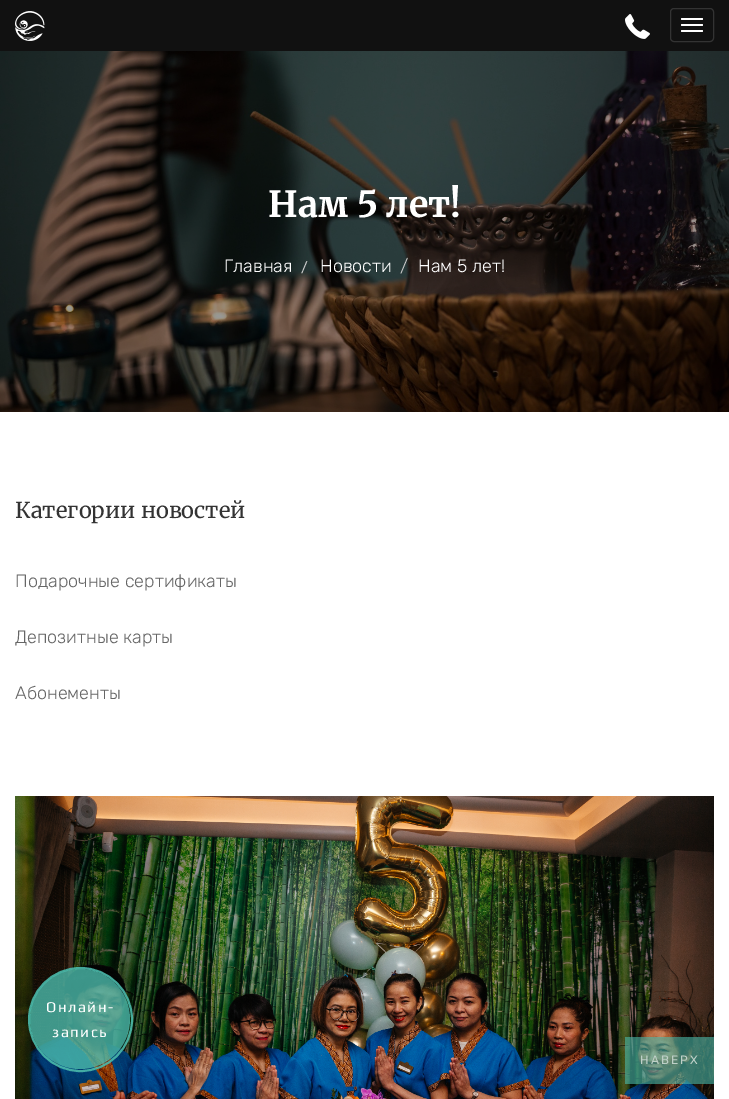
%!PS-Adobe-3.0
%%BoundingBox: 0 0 729 1099
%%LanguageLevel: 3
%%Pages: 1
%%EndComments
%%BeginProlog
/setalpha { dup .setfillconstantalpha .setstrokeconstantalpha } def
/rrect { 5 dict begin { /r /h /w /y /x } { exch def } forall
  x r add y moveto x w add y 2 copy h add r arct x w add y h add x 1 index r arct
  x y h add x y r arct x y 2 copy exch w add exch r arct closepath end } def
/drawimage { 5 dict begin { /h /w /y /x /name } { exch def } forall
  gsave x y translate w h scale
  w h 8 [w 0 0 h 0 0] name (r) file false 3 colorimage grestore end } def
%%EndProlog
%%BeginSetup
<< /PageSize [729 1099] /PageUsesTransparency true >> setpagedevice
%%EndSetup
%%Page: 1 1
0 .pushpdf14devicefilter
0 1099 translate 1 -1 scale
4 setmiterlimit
1 setgray
0 0 729 1099 rectfill
0.067 setgray
0 0 729 51 rectfill
(images/1.raw) 15 11 30 30 drawimage
(images/2.raw) 625 14 25 25 drawimage
0.2 setgray
670.5 8.5 43 33 3.5 rrect stroke
1 setgray
681 18 22 2 1 rrect fill
681 24 22 2 1 rrect fill
681 30 22 2 1 rrect fill
(images/3.raw) 0 51 729 361 drawimage
(images/4.raw) 15 796 699 303 drawimage
0.8 setalpha
0.29 0.725 0.667 setrgbcolor
newpath 80 1019 50 0 360 arc closepath fill
0.9 setalpha
2 setlinewidth
newpath 80.5 1019.5 51.5 0 360 arc closepath stroke
0.6 setalpha
625 1037 89 47 rectfill
/Merriweather-Bold [36 0 0 -36 0 0] selectfont
1 setalpha
1 setgray
268 217 moveto (Нам 5 лет!) show
/Rubik-Light [18 0 0 -18 0 0] selectfont
224 272 moveto (Главная) show
/Rubik-Regular [14 0 0 -14 0 0] selectfont
0.8 setgray
301 272 moveto (/) show
/Rubik-Light [18 0 0 -18 0 0] selectfont
1 setgray
320 272 moveto (Новости) show
0.8 setgray
400 272 moveto (/) show
1 setgray
418 272 moveto (Нам 5 лет!) show
/Merriweather-Regular [22 0 0 -22 0 0] selectfont
0.2 setgray
15 518 moveto (Категории новостей) show
/Rubik-Light [18 0 0 -18 0 0] selectfont
0.4 setgray
15 587 moveto (Подарочные сертификаты) show
15 643 moveto (Депозитные карты) show
15 699 moveto (Абонементы) show
/Play-Regular [15 0 0 -15 0 0] selectfont
1 setgray
46 1012 moveto 1.5 0 (Онлайн-) ashow
52 1037 moveto 1.5 0 (запись) ashow
/Rubik-Regular [12 0 0 -12 0 0] selectfont
0.749 0.816 0.784 setrgbcolor
640 1064 moveto 2 0 (НАВЕРХ) ashow
.poppdf14devicefilter showpage
%%EOF
